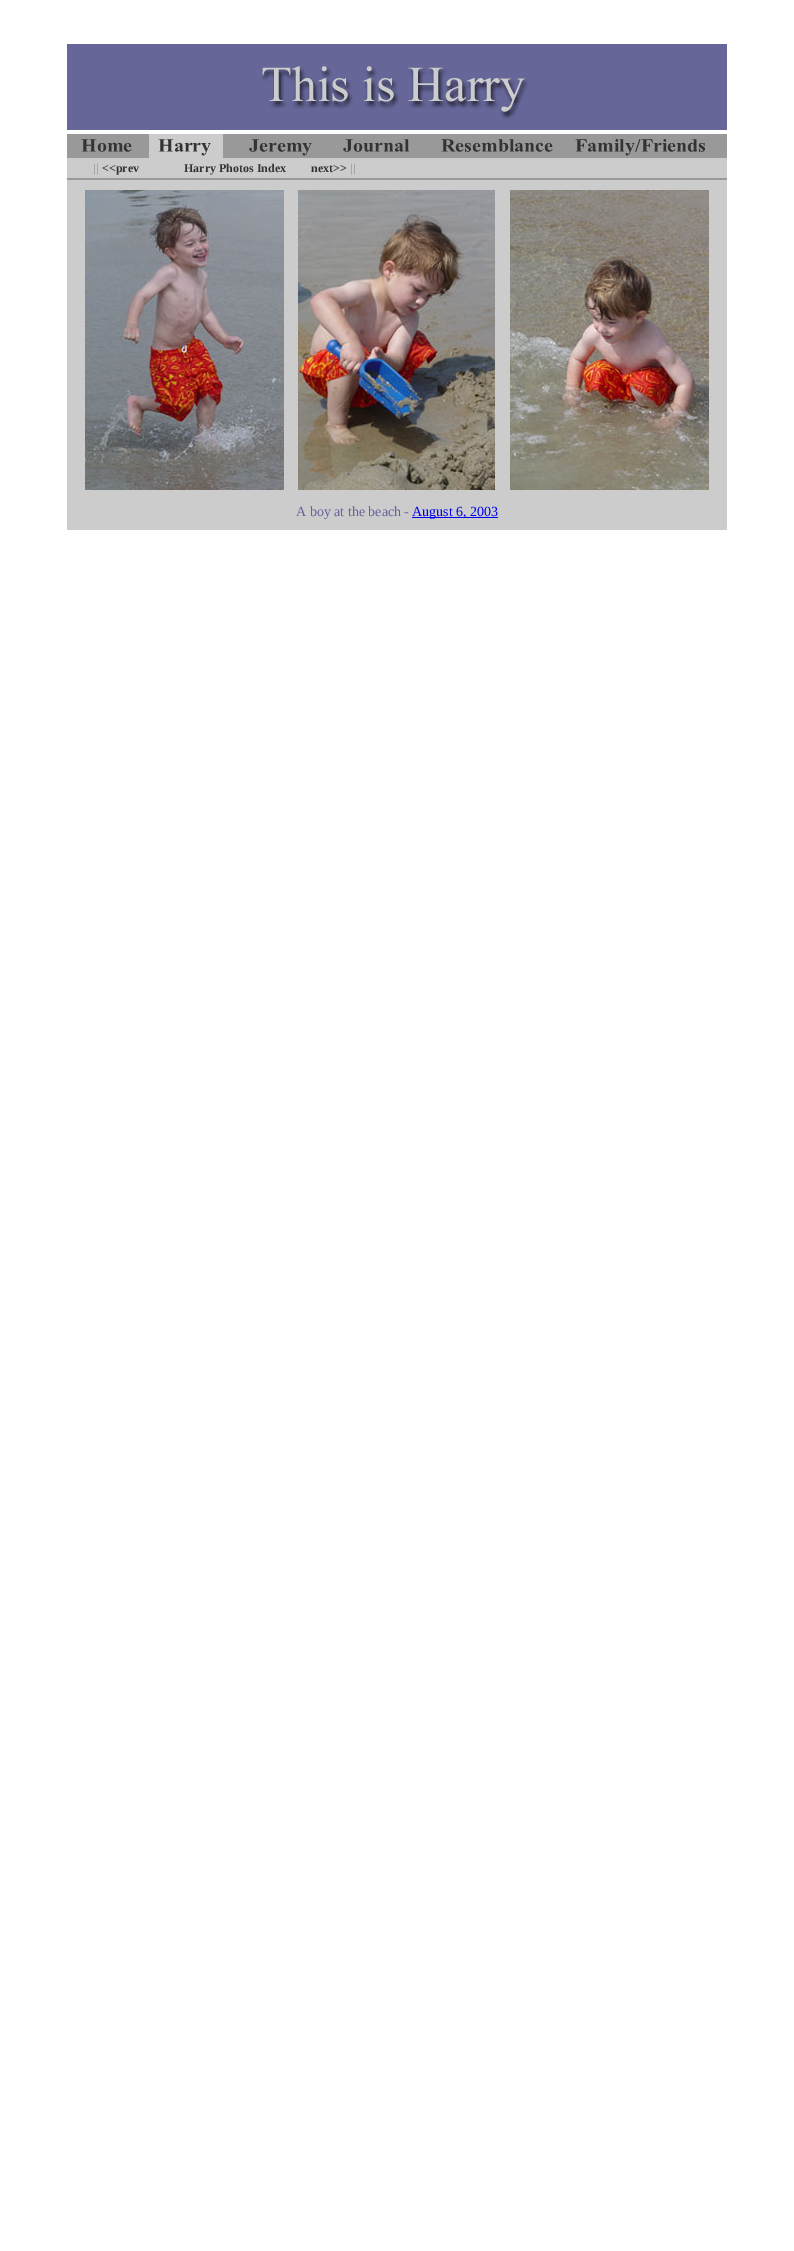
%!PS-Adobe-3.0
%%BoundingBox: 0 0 794 2251
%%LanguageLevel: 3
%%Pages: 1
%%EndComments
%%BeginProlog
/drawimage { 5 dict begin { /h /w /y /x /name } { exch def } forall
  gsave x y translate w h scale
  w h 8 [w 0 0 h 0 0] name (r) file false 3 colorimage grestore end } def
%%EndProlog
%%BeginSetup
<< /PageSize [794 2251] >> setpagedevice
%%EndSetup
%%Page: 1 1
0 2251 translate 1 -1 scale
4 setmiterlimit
1 setgray
0 0 794 2251 rectfill
(images/1.raw) 67 44 660 86 drawimage
0.8 setgray
67 134 660 396 rectfill
0.6 setgray
67 134 14 24 rectfill
(images/2.raw) 81 134 53 24 drawimage
134 134 15 24 rectfill
(images/3.raw) 158 139 53 17 drawimage
223 134 18 24 rectfill
(images/4.raw) 241 134 74 24 drawimage
315 134 18 24 rectfill
(images/5.raw) 333 134 89 24 drawimage
422 134 18 24 rectfill
(images/6.raw) 440 134 119 24 drawimage
559 134 16 24 rectfill
(images/7.raw) 575 134 134 24 drawimage
709 134 18 24 rectfill
67 178 660 2 rectfill
(images/8.raw) 85 190 199 300 drawimage
(images/9.raw) 298 190 197 300 drawimage
(images/10.raw) 510 190 199 300 drawimage
0 0 0.933 setrgbcolor
412 517 86 1 rectfill
/LiberationSerif-Bold [12 0 0 -12 0 0] selectfont
0.6 setgray
93 172 moveto (||) show
0.2 setgray
102 172 moveto (<<prev) show
184 172 moveto (Harry Photos Index) show
311 172 moveto (next>>) show
0.6 setgray
350 172 moveto (||) show
/LiberationSerif-Regular [14 0 0 -14 0 0] selectfont
0.388 0.388 0.612 setrgbcolor
296 516 moveto (A boy at the beach -) show
0 0 0.933 setrgbcolor
412 516 moveto (August 6, 2003) show
showpage
%%EOF
